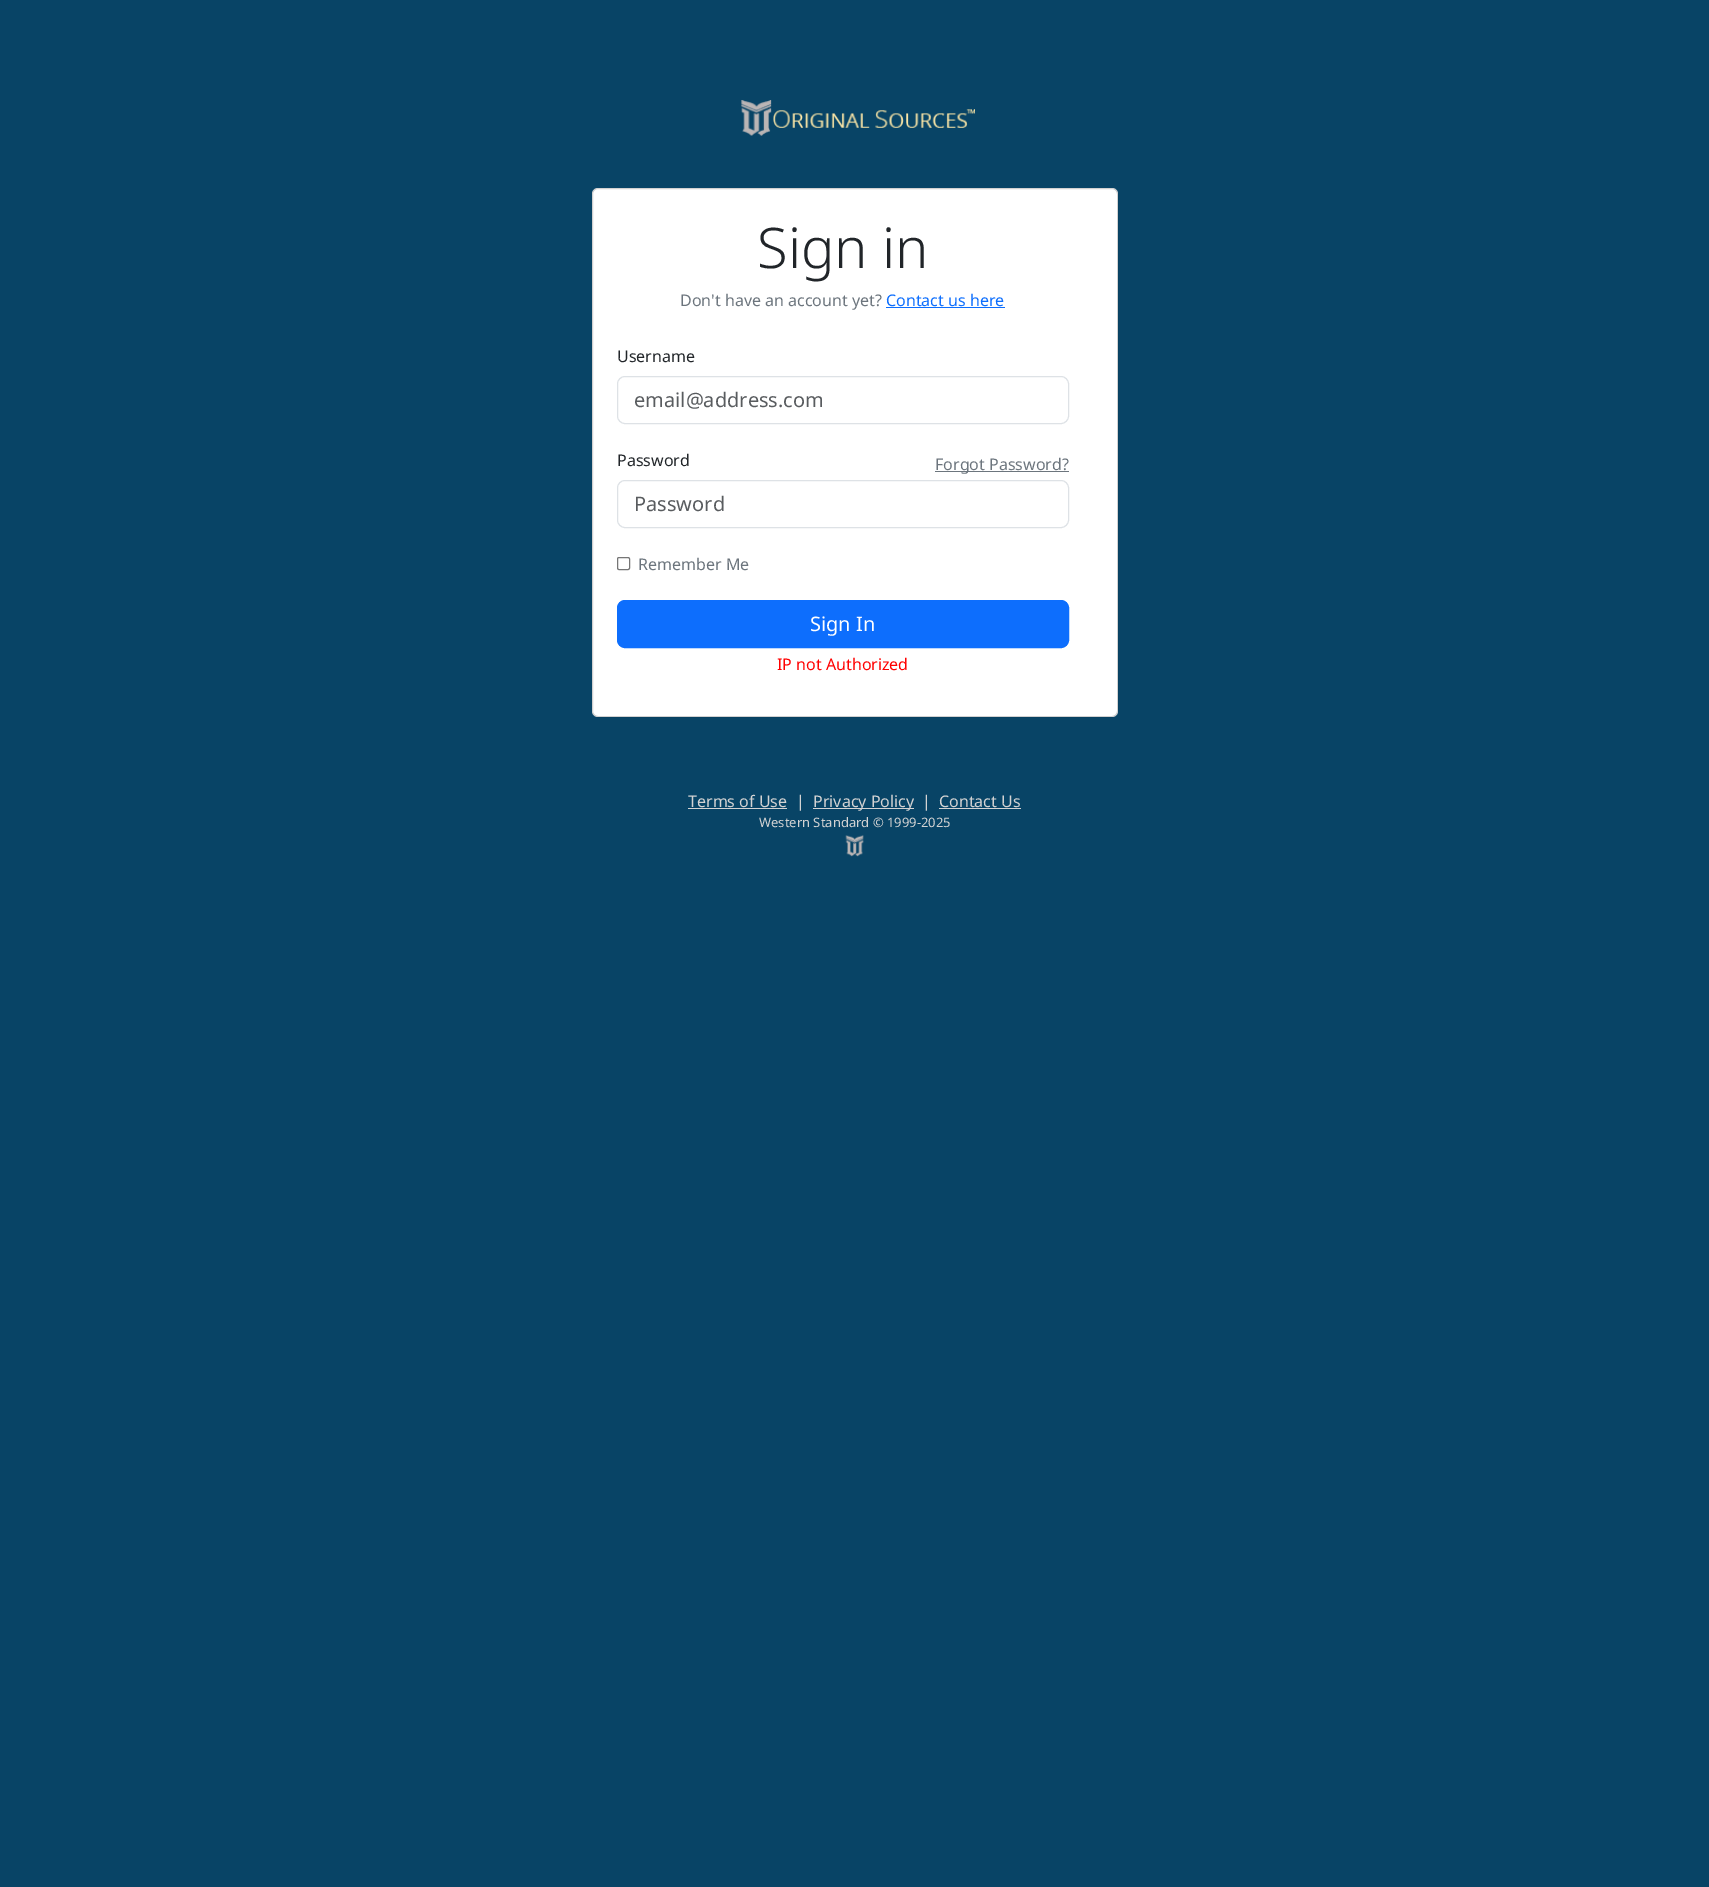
%!PS-Adobe-3.0
%%BoundingBox: 0 0 1709 1887
%%LanguageLevel: 3
%%Pages: 1
%%EndComments
%%BeginProlog
/setalpha { dup .setfillconstantalpha .setstrokeconstantalpha } def
/rrect { 5 dict begin { /r /h /w /y /x } { exch def } forall
  x r add y moveto x w add y 2 copy h add r arct x w add y h add x 1 index r arct
  x y h add x y r arct x y 2 copy exch w add exch r arct closepath end } def
/drawimage { 5 dict begin { /h /w /y /x /name } { exch def } forall
  gsave x y translate w h scale
  w h 8 [w 0 0 h 0 0] name (r) file false 3 colorimage grestore end } def
%%EndProlog
%%BeginSetup
<< /PageSize [1709 1887] /PageUsesTransparency true >> setpagedevice
%%EndSetup
%%Page: 1 1
0 .pushpdf14devicefilter
0 1887 translate 1 -1 scale
4 setmiterlimit
0.031 0.267 0.4 setrgbcolor
0 0 1709 1887 rectfill
(images/1.raw) 741 100 234 36 drawimage
1 setgray
592 188 526 529 6 rrect fill
0.18 setalpha
0 setgray
592.5 188.5 525 528 5.5 rrect stroke
1 setalpha
0.051 0.431 0.992 setrgbcolor
886 307 119 1 rectfill
0.871 0.886 0.902 setrgbcolor
617.5 376.5 451 47 7.5 rrect stroke
0.424 0.459 0.49 setrgbcolor
935 471 134 1 rectfill
0.871 0.886 0.902 setrgbcolor
617.5 480.5 451 47 7.5 rrect stroke
0.463 setgray
617.5 557.5 12 12 1.5 rrect stroke
0.051 0.431 0.992 setrgbcolor
617.5 600.5 451 47 7.5 rrect gsave fill grestore
stroke
0.827 setgray
688 808 99 1 rectfill
813 808 101 1 rectfill
939 808 82 1 rectfill
(images/2.raw) 845 835 19 22 drawimage
/NotoSans-Light [56 0 0 -56 0 0] selectfont
0.129 0.145 0.161 setrgbcolor
757 268 moveto (Sign in) show
/NotoSans-Regular [16 0 0 -16 0 0] selectfont
0.424 0.459 0.49 setrgbcolor
680 306 moveto (Don't have an account yet?) show
0.051 0.431 0.992 setrgbcolor
886 306 moveto (Contact us here) show
0.129 0.145 0.161 setrgbcolor
617 362 moveto (Username) show
/NotoSans-Regular [20 0 0 -20 0 0] selectfont
0.349 0.361 0.373 setrgbcolor
634 407 moveto (email@address.com) show
/NotoSans-Regular [16 0 0 -16 0 0] selectfont
0.129 0.145 0.161 setrgbcolor
617 466 moveto (Password) show
0.424 0.459 0.49 setrgbcolor
935 470 moveto (Forgot Password?) show
/NotoSans-Regular [20 0 0 -20 0 0] selectfont
0.349 0.361 0.373 setrgbcolor
634 511 moveto (Password) show
/NotoSans-Regular [16 0 0 -16 0 0] selectfont
0.424 0.459 0.49 setrgbcolor
638 570 moveto (Remember Me) show
/NotoSans-Regular [20 0 0 -20 0 0] selectfont
1 setgray
810 631 moveto (Sign In) show
/NotoSans-Regular [16 0 0 -16 0 0] selectfont
1 0 0 setrgbcolor
777 670 moveto (IP not Authorized) show
0.827 setgray
688 807 moveto (Terms of Use) show
796 807 moveto (|) show
813 807 moveto (Privacy Policy) show
922 807 moveto (|) show
939 807 moveto (Contact Us) show
/NotoSans-Regular [13 0 0 -13 0 0] selectfont
759 827 moveto (Western Standard © 1999-2025) show
.poppdf14devicefilter showpage
%%EOF
